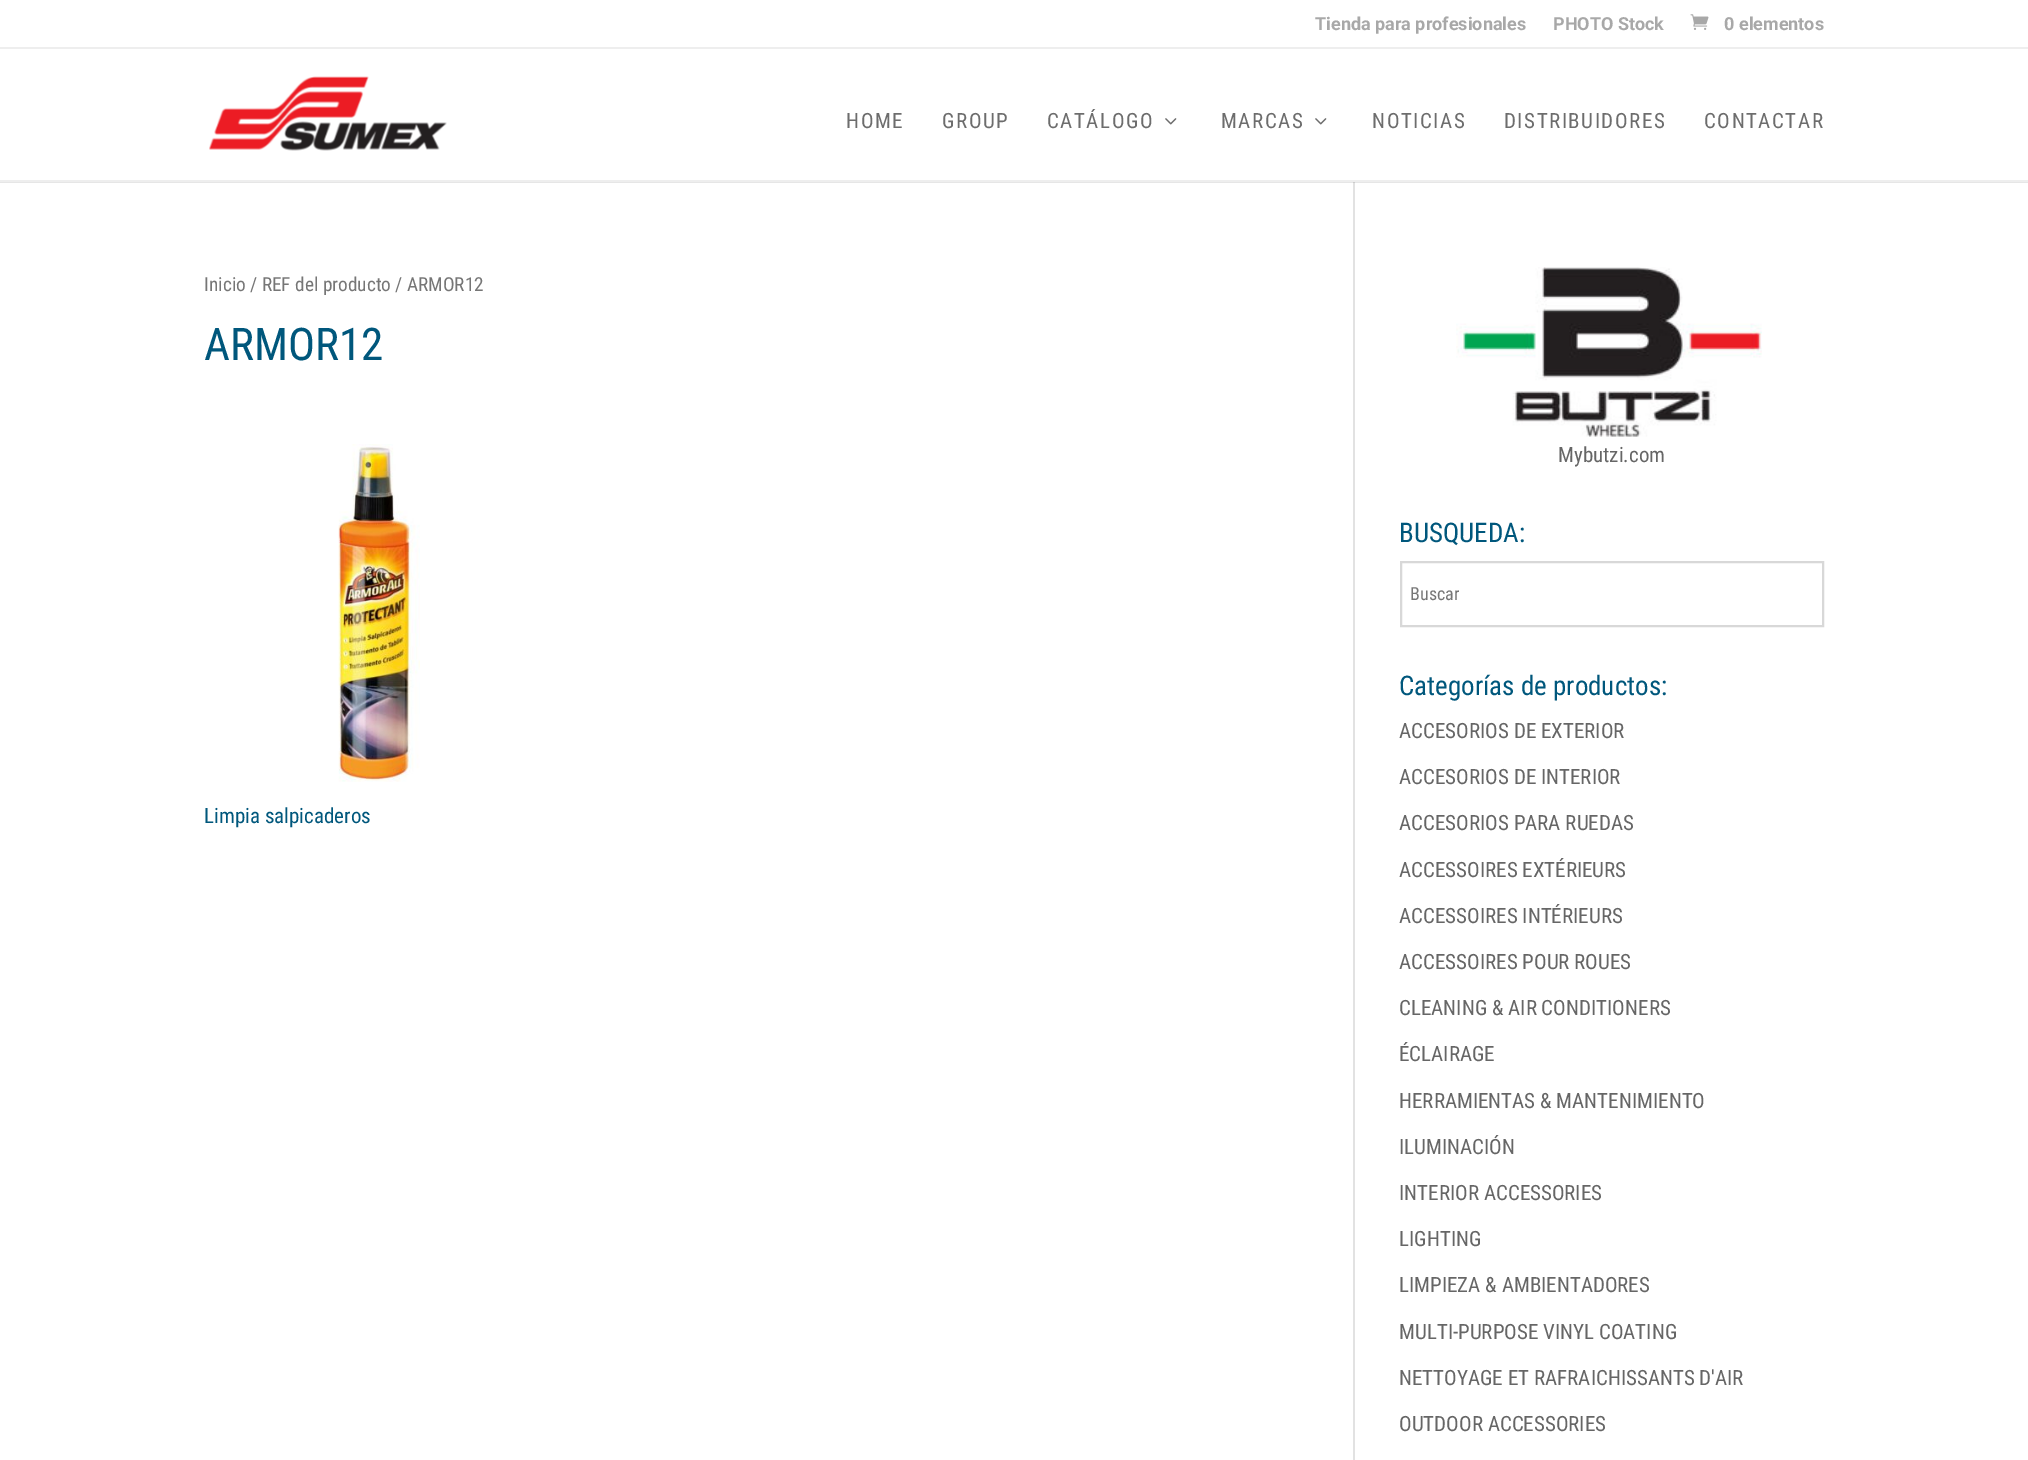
%!PS-Adobe-3.0
%%BoundingBox: 0 0 2028 1460
%%LanguageLevel: 3
%%Pages: 1
%%EndComments
%%BeginProlog
/drawimage { 5 dict begin { /h /w /y /x /name } { exch def } forall
  gsave x y translate w h scale
  w h 8 [w 0 0 h 0 0] name (r) file false 3 colorimage grestore end } def
%%EndProlog
%%BeginSetup
<< /PageSize [2028 1460] >> setpagedevice
%%EndSetup
%%Page: 1 1
0 1460 translate 1 -1 scale
4 setmiterlimit
1 setgray
0 0 2028 1460 rectfill
0.902 setgray
0 182 2028 1 rectfill
0.933 setgray
0 47 2028 2 rectfill
(images/1.raw) 1690 14 19 16 drawimage
0.886 setgray
1353 180 2 1280 rectfill
0.933 setgray
0 180 2028 2 rectfill
(images/2.raw) 209 76 238 75 drawimage
(images/3.raw) 1165 118 12 7 drawimage
(images/3.raw) 1315 118 12 7 drawimage
0.796 setgray
1353 182 2 1 rectfill
(images/4.raw) 338 444 82 338 drawimage
(images/5.raw) 1456 267 306 170 drawimage
0.847 setgray
2 setlinewidth
1401 562 422 64 rectstroke
/Roboto-Bold [18 0 0 -18 0 0] selectfont
0.659 setgray
1315 30 moveto (Tienda para profesionales) show
1553 30 moveto (PHOTO Stock) show
1724 30 moveto (0 elementos) show
/RobotoCondensed-Regular [21 0 0 -21 0 0] selectfont
0.427 setgray
846 128 moveto 1.5 0 (HOME) ashow
942 128 moveto 1.5 0 (GROUP) ashow
1047 128 moveto 1.5 0 (CATÁLOGO) ashow
1221 128 moveto 1.5 0 (MARCAS) ashow
1372 128 moveto 1.5 0 (NOTICIAS) ashow
1504 128 moveto 1.5 0 (DISTRIBUIDORES) ashow
1704 128 moveto 1.5 0 (CONTACTAR) ashow
/RobotoCondensed-Regular [19.3 0 0 -19.3 0 0] selectfont
0.463 setgray
204 291 moveto (Inicio / REF del producto / ARMOR12) show
/RobotoCondensed-Regular [45 0 0 -45 0 0] selectfont
0 0.341 0.486 setrgbcolor
204 360 moveto (ARMOR12) show
/RobotoCondensed-Regular [21 0 0 -21 0 0] selectfont
204 823 moveto (Limpia salpicaderos) show
0.4 setgray
1558 462 moveto (Mybutzi.com) show
/RobotoCondensed-Regular [27 0 0 -27 0 0] selectfont
0 0.341 0.486 setrgbcolor
1399 542 moveto (BUSQUEDA:) show
/RobotoCondensed-Regular [18 0 0 -18 0 0] selectfont
0.463 setgray
1410 600 moveto (Buscar) show
/RobotoCondensed-Regular [27 0 0 -27 0 0] selectfont
0 0.341 0.486 setrgbcolor
1399 695 moveto (Categorías de productos:) show
/RobotoCondensed-Regular [21 0 0 -21 0 0] selectfont
0.4 setgray
1399 738 moveto (ACCESORIOS DE EXTERIOR) show
1399 784 moveto (ACCESORIOS DE INTERIOR) show
1399 830 moveto (ACCESORIOS PARA RUEDAS) show
1399 877 moveto (ACCESSOIRES EXTÉRIEURS) show
1399 923 moveto (ACCESSOIRES INTÉRIEURS) show
1399 969 moveto (ACCESSOIRES POUR ROUES) show
1399 1015 moveto (CLEANING & AIR CONDITIONERS) show
1399 1061 moveto (ÉCLAIRAGE) show
1399 1108 moveto (HERRAMIENTAS & MANTENIMIENTO) show
1399 1154 moveto (ILUMINACIÓN) show
1399 1200 moveto (INTERIOR ACCESSORIES) show
1399 1246 moveto (LIGHTING) show
1399 1292 moveto (LIMPIEZA & AMBIENTADORES) show
1399 1339 moveto (MULTI-PURPOSE VINYL COATING) show
1399 1385 moveto (NETTOYAGE ET RAFRAICHISSANTS D'AIR) show
1399 1431 moveto (OUTDOOR ACCESSORIES) show
showpage
%%EOF
